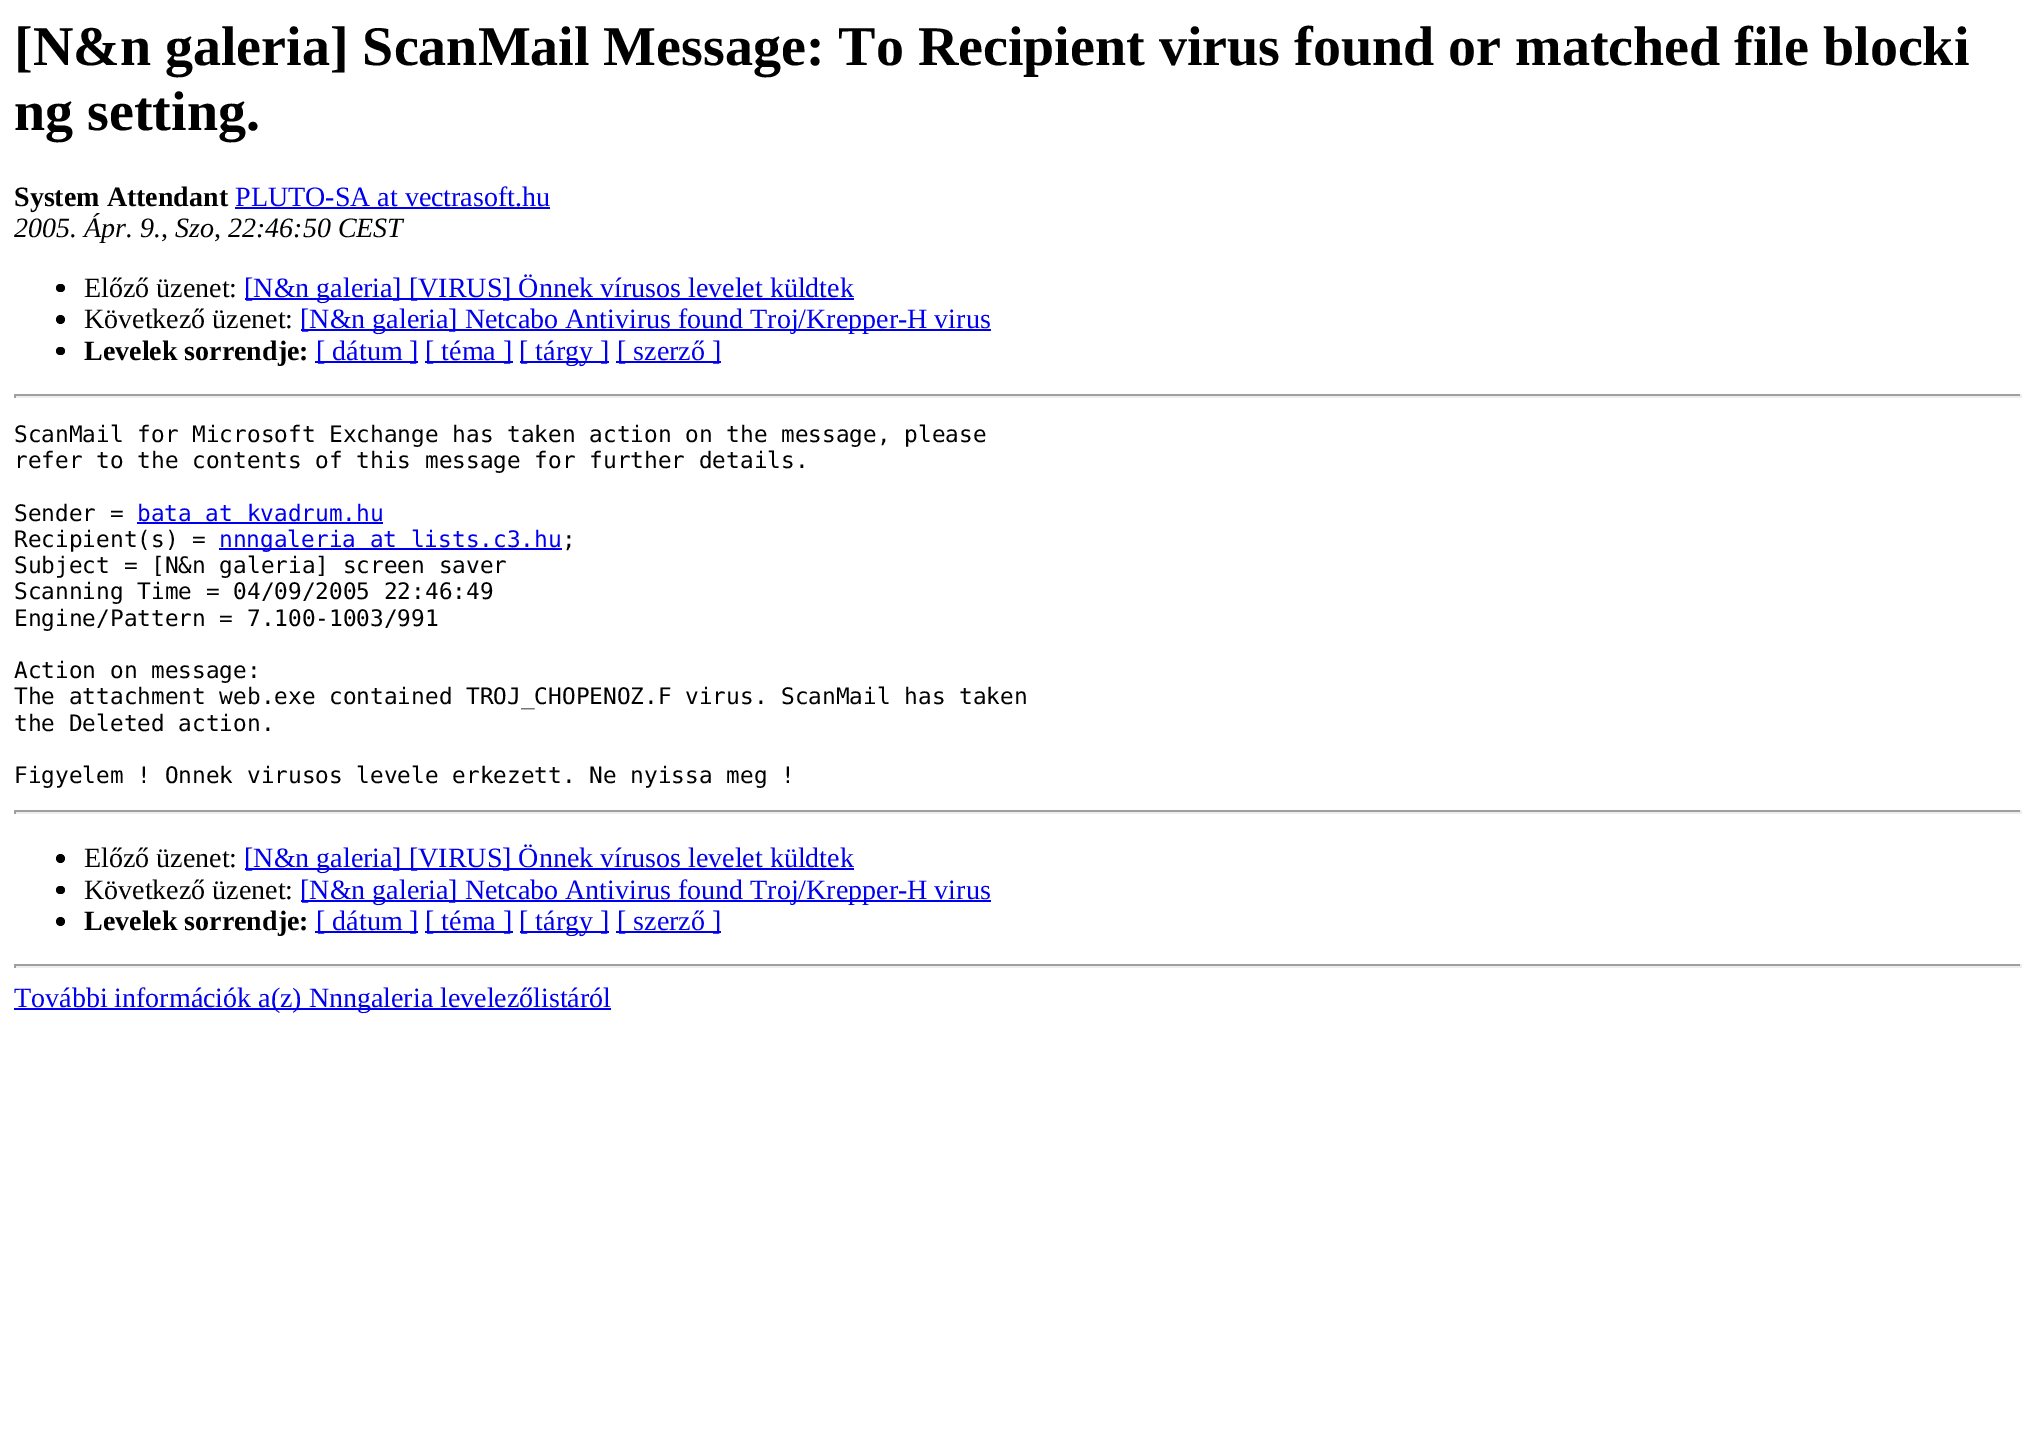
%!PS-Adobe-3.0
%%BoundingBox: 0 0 2035 1442
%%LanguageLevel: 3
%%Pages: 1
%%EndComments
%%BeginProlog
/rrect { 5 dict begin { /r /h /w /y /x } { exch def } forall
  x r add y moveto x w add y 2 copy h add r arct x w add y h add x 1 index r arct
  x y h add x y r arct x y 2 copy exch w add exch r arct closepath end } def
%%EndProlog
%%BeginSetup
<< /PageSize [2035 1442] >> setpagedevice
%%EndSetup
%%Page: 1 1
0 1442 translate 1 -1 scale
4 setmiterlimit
1 setgray
0 0 2035 1442 rectfill
0 0 0.933 setrgbcolor
235 207 315 2 rectfill
0 setgray
56 284 9 8 4 rrect fill
0 0 0.933 setrgbcolor
245 298 609 2 rectfill
0 setgray
newpath 60.5 319.5 4.5 0 360 arc closepath fill
0 0 0.933 setrgbcolor
301 329 690 2 rectfill
0 setgray
56 347 9 8 4 rrect fill
0 0 0.933 setrgbcolor
315 361 103 2 rectfill
425 361 88 2 rectfill
520 361 89 2 rectfill
616 361 105 2 rectfill
0.624 setgray
14 394 2007 2 rectfill
0.933 setgray
2020 394 2 4 rectfill
14 396 2007 2 rectfill
0.624 setgray
14 394 2 4 rectfill
0 0 0.933 setrgbcolor
137 522 246 2 rectfill
219 548 343 2 rectfill
0.624 setgray
14 810 2007 2 rectfill
0.933 setgray
2020 810 2 4 rectfill
14 812 2007 2 rectfill
0.624 setgray
14 810 2 4 rectfill
0 setgray
newpath 60.5 858.5 4.5 0 360 arc closepath fill
0 0 0.933 setrgbcolor
245 868 609 2 rectfill
0 setgray
56 886 9 8 4 rrect fill
0 0 0.933 setrgbcolor
301 900 690 2 rectfill
0 setgray
newpath 60.5 921.5 4.5 0 360 arc closepath fill
0 0 0.933 setrgbcolor
315 931 103 2 rectfill
425 931 88 2 rectfill
520 931 89 2 rectfill
616 931 105 2 rectfill
0.624 setgray
14 964 2007 2 rectfill
0.933 setgray
2020 964 2 4 rectfill
14 966 2007 2 rectfill
0.624 setgray
14 964 2 4 rectfill
0 0 0.933 setrgbcolor
14 1008 597 2 rectfill
/LiberationSerif-Bold [56 0 0 -56 0 0] selectfont
0 setgray
14 65 moveto ([N&n galeria] ScanMail Message: To Recipient virus found or matched file blocki) show
14 130 moveto (ng setting.) show
/LiberationSerif-Bold [28 0 0 -28 0 0] selectfont
14 206 moveto (System Attendant) show
/LiberationSerif-Regular [28 0 0 -28 0 0] selectfont
0 0 0.933 setrgbcolor
235 206 moveto (PLUTO-SA at vectrasoft.hu) show
/LiberationSerif-Italic [28 0 0 -28 0 0] selectfont
0 setgray
14 237 moveto (2005. Ápr. 9., Szo, 22:46:50 CEST) show
/LiberationSerif-Regular [28 0 0 -28 0 0] selectfont
84 297 moveto (Előző üzenet:) show
0 0 0.933 setrgbcolor
244 297 moveto ([N&n galeria] [VIRUS] Önnek vírusos levelet küldtek) show
0 setgray
84 328 moveto (Következő üzenet:) show
0 0 0.933 setrgbcolor
300 328 moveto ([N&n galeria] Netcabo Antivirus found Troj/Krepper-H virus) show
/LiberationSerif-Bold [28 0 0 -28 0 0] selectfont
0 setgray
84 360 moveto (Levelek sorrendje:) show
/LiberationSerif-Regular [28 0 0 -28 0 0] selectfont
0 0 0.933 setrgbcolor
316 360 moveto ([ dátum ]) show
425 360 moveto ([ téma ]) show
519 360 moveto ([ tárgy ]) show
617 360 moveto ([ szerző ]) show
/DejaVuSansMono-Regular [22.75 0 0 -22.75 0 0] selectfont
0 setgray
14 442 moveto (ScanMail for Microsoft Exchange has taken action on the message, please) show
14 468 moveto (refer to the contents of this message for further details.) show
14 521 moveto (Sender =) show
0 0 0.933 setrgbcolor
137 521 moveto (bata at kvadrum.hu) show
0 setgray
14 547 moveto (Recipient\(s\) =) show
0 0 0.933 setrgbcolor
219 547 moveto (nnngaleria at lists.c3.hu) show
0 setgray
562 547 moveto (;) show
14 573 moveto (Subject = [N&n galeria] screen saver) show
14 599 moveto (Scanning Time = 04/09/2005 22:46:49) show
14 626 moveto (Engine/Pattern = 7.100-1003/991) show
14 678 moveto (Action on message:) show
14 704 moveto (The attachment web.exe contained TROJ_CHOPENOZ.F virus. ScanMail has taken) show
14 731 moveto (the Deleted action.) show
14 783 moveto (Figyelem ! Onnek virusos levele erkezett. Ne nyissa meg !) show
/LiberationSerif-Regular [28 0 0 -28 0 0] selectfont
84 867 moveto (Előző üzenet:) show
0 0 0.933 setrgbcolor
244 867 moveto ([N&n galeria] [VIRUS] Önnek vírusos levelet küldtek) show
0 setgray
84 899 moveto (Következő üzenet:) show
0 0 0.933 setrgbcolor
300 899 moveto ([N&n galeria] Netcabo Antivirus found Troj/Krepper-H virus) show
/LiberationSerif-Bold [28 0 0 -28 0 0] selectfont
0 setgray
84 930 moveto (Levelek sorrendje:) show
/LiberationSerif-Regular [28 0 0 -28 0 0] selectfont
0 0 0.933 setrgbcolor
316 930 moveto ([ dátum ]) show
425 930 moveto ([ téma ]) show
519 930 moveto ([ tárgy ]) show
617 930 moveto ([ szerző ]) show
14 1007 moveto (További információk a\(z\) Nnngaleria levelezőlistáról) show
showpage
%%EOF
